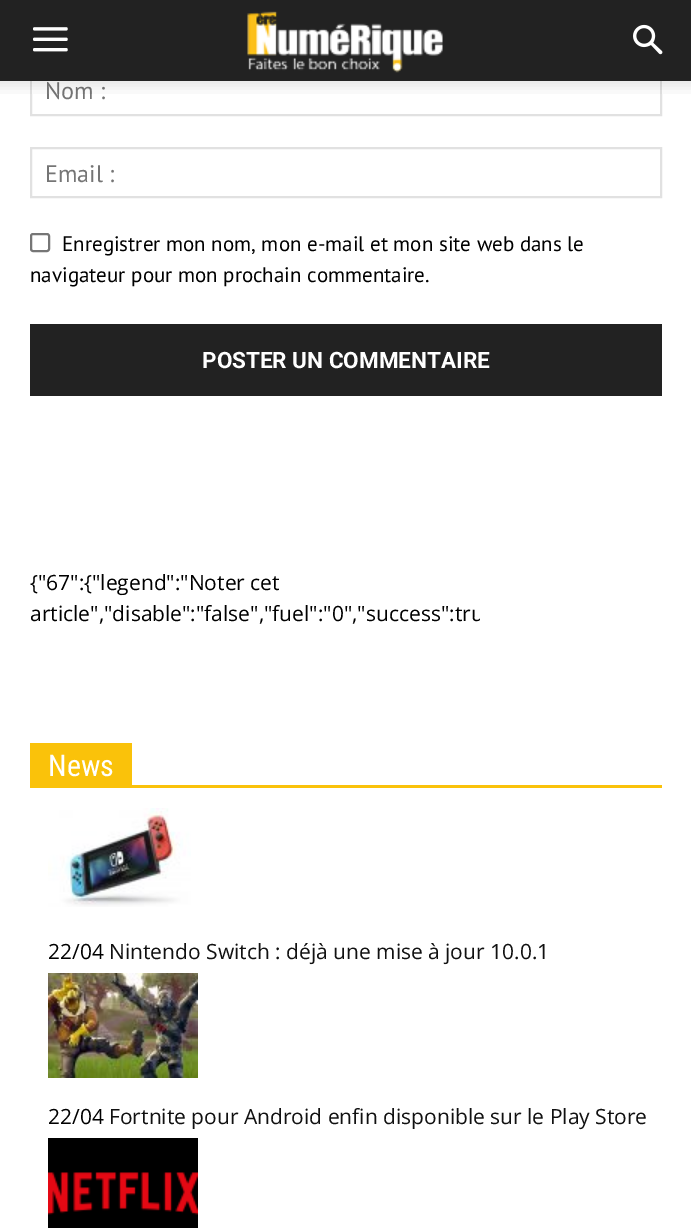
%!PS-Adobe-3.0
%%BoundingBox: 0 0 691 1228
%%LanguageLevel: 3
%%Pages: 1
%%EndComments
%%BeginProlog
/rrect { 5 dict begin { /r /h /w /y /x } { exch def } forall
  x r add y moveto x w add y 2 copy h add r arct x w add y h add x 1 index r arct
  x y h add x y r arct x y 2 copy exch w add exch r arct closepath end } def
/drawimage { 5 dict begin { /h /w /y /x /name } { exch def } forall
  gsave x y translate w h scale
  w h 8 [w 0 0 h 0 0] name (r) file false 3 colorimage grestore end } def
%%EndProlog
%%BeginSetup
<< /PageSize [691 1228] >> setpagedevice
%%EndSetup
%%Page: 1 1
0 1228 translate 1 -1 scale
4 setmiterlimit
1 setgray
0 0 691 1228 rectfill
0.882 setgray
2 setlinewidth
31 66 630 49 rectstroke
0.133 setgray
0 0 691 81 rectfill
(images/1.raw) 33 27 35 25 drawimage
(images/2.raw) 247 11 196 62 drawimage
(images/3.raw) 633 24 30 31 drawimage
0.882 setgray
31 148 630 49 rectstroke
0.463 setgray
31 234 18 17 2 rrect stroke
0.133 setgray
30 324 632 72 rectfill
0.98 0.761 0.039 setrgbcolor
30 785 632 3 rectfill
30 743 102 42 rectfill
(images/5.raw) 48 808 143 99 drawimage
(images/6.raw) 48 973 150 105 drawimage
(images/7.raw) 48 1138 150 90 drawimage
/PTSans-Regular [24 0 0 -24 0 0] selectfont
0.459 setgray
45 99 moveto (Nom :) show
(images/4.raw) 0 81 691 13 drawimage
45 182 moveto (Email :) show
/PTSans-Regular [21 0 0 -21 0 0] selectfont
0 setgray
62 251 moveto (Enregistrer mon nom, mon e-mail et mon site web dans le) show
30 282 moveto (navigateur pour mon prochain commentaire.) show
/Roboto-Bold [22.5 0 0 -22.5 0 0] selectfont
1 setgray
202 368 moveto (POSTER UN COMMENTAIRE) show
/OpenSans-Regular [21 0 0 -21 0 0] selectfont
0 setgray
30 590 moveto ({"67":{"legend":"Noter cet) show
gsave
30 566 450 63 rectclip
30 621 moveto (article","disable":"false","fuel":"0","success":tru) show
grestore
/RobotoCondensed-Regular [30 0 0 -30 0 0] selectfont
1 setgray
48 776 moveto (News) show
/OpenSans-Regular [21 0 0 -21 0 0] selectfont
0 setgray
48 959 moveto (22/04) show
0.067 setgray
109 959 moveto (Nintendo Switch : déjà une mise à jour 10.0.1) show
0 setgray
48 1124 moveto (22/04) show
0.067 setgray
109 1124 moveto (Fortnite pour Android enfin disponible sur le Play Store) show
showpage
%%EOF
